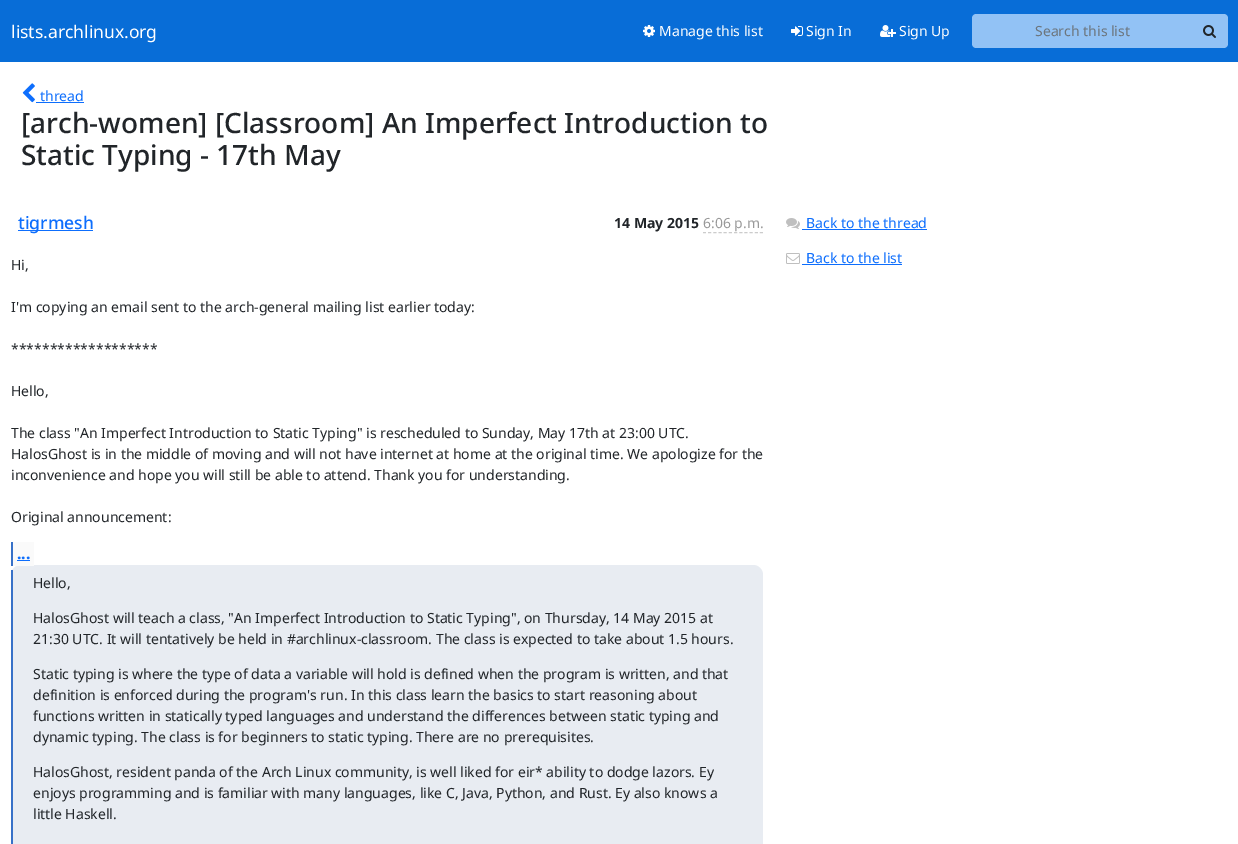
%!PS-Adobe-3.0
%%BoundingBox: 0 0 1238 844
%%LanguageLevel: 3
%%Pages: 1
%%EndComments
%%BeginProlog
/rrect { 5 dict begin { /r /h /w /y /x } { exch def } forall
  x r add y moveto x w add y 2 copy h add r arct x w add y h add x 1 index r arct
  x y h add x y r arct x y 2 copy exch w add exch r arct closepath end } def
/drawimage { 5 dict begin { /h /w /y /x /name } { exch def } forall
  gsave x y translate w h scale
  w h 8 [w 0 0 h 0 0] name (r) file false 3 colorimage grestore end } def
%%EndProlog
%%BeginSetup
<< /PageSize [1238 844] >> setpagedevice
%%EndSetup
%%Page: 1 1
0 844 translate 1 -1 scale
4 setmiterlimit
1 setgray
0 0 1238 844 rectfill
0.031 0.427 0.843 setrgbcolor
0 0 1238 62 rectfill
(images/1.raw) 643 25 12 12 drawimage
(images/2.raw) 791 26 12 10 drawimage
(images/3.raw) 880 25 16 12 drawimage
0.573 0.761 0.961 setrgbcolor
newpath 976 14 moveto 1193 14 lineto 1193 48 lineto 976 48 lineto 974 48 972 46 972 44 curveto 972 18 lineto 972 16 974 14 976 14 curveto closepath fill
newpath 1192 14 moveto 1224 14 lineto 1226 14 1228 16 1228 18 curveto 1228 44 lineto 1228 46 1226 48 1224 48 curveto 1192 48 lineto closepath fill
(images/4.raw) 1203 25 13 13 drawimage
(images/5.raw) 22 83 13 20 drawimage
0.051 0.431 0.992 setrgbcolor
36 102 48 1 rectfill
18 230 75 1 rectfill
0.8 setgray
[3 2.18] 0 setdash
newpath 703 232.5 moveto 763 232.5 lineto stroke
0.91 0.925 0.949 setrgbcolor
11 565 752 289 10 rrect fill
0.98 setgray
13 542 21 24 rectfill
0.216 0.443 0.784 setrgbcolor
11 542 2 24 rectfill
0.051 0.431 0.992 setrgbcolor
17 560 13 1 rectfill
0.216 0.443 0.784 setrgbcolor
11 570 2 274 rectfill
(images/6.raw) 786 218 14 11 drawimage
0.051 0.431 0.992 setrgbcolor
802 229 125 1 rectfill
(images/7.raw) 786 253 14 11 drawimage
802 264 100 1 rectfill
/NotoSans-Regular [17.5 0 0 -17.5 0 0] selectfont
1 setgray
11 38 moveto (lists.archlinux.org) show
/NotoSans-Regular [14 0 0 -14 0 0] selectfont
659 36 moveto (Manage this list) show
806 36 moveto (Sign In) show
899 36 moveto (Sign Up) show
0.424 0.459 0.49 setrgbcolor
1035 36 moveto (Search this list) show
0.051 0.431 0.992 setrgbcolor
40 101 moveto (thread) show
/NotoSans-Medium [28 0 0 -28 0 0] selectfont
0.129 0.145 0.161 setrgbcolor
21 133 moveto ([arch-women] [Classroom] An Imperfect Introduction to) show
21 165 moveto (Static Typing - 17th May) show
/NotoSans-Medium [17.5 0 0 -17.5 0 0] selectfont
0.051 0.431 0.992 setrgbcolor
18 229 moveto (tigrmesh) show
/NotoSans-Bold [14 0 0 -14 0 0] selectfont
0.129 0.145 0.161 setrgbcolor
614 228 moveto (14 May 2015) show
/NotoSans-Regular [14 0 0 -14 0 0] selectfont
0.6 setgray
703 228 moveto (6:06 p.m.) show
0.129 0.145 0.161 setrgbcolor
11 270 moveto (Hi,) show
11 312 moveto (I'm copying an email sent to the arch-general mailing list earlier today:) show
11 354 moveto (*******************) show
11 396 moveto (Hello,) show
11 438 moveto (The class "An Imperfect Introduction to Static Typing" is rescheduled to Sunday, May 17th at 23:00 UTC.) show
11 459 moveto (HalosGhost is in the middle of moving and will not have internet at home at the original time. We apologize for the) show
11 480 moveto (inconvenience and hope you will still be able to attend. Thank you for understanding.) show
11 522 moveto (Original announcement:) show
/NotoSans-Bold [16 0 0 -16 0 0] selectfont
0.051 0.431 0.992 setrgbcolor
17 559 moveto (...) show
/NotoSans-Regular [14 0 0 -14 0 0] selectfont
0.129 0.145 0.161 setrgbcolor
33 588 moveto (Hello,) show
33 623 moveto (HalosGhost will teach a class, "An Imperfect Introduction to Static Typing", on Thursday, 14 May 2015 at) show
33 644 moveto (21:30 UTC. It will tentatively be held in #archlinux-classroom. The class is expected to take about 1.5 hours.) show
33 679 moveto (Static typing is where the type of data a variable will hold is defined when the program is written, and that) show
33 700 moveto (definition is enforced during the program's run. In this class learn the basics to start reasoning about) show
33 721 moveto (functions written in statically typed languages and understand the differences between static typing and) show
33 742 moveto (dynamic typing. The class is for beginners to static typing. There are no prerequisites.) show
33 777 moveto (HalosGhost, resident panda of the Arch Linux community, is well liked for eir* ability to dodge lazors. Ey) show
33 798 moveto (enjoys programming and is familiar with many languages, like C, Java, Python, and Rust. Ey also knows a) show
33 819 moveto (little Haskell.) show
0.051 0.431 0.992 setrgbcolor
806 228 moveto (Back to the thread) show
806 263 moveto (Back to the list) show
showpage
%%EOF
